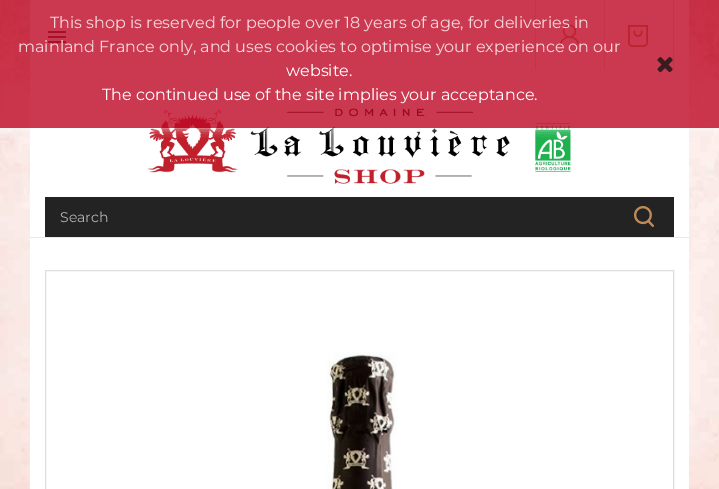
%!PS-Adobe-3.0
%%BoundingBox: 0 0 719 489
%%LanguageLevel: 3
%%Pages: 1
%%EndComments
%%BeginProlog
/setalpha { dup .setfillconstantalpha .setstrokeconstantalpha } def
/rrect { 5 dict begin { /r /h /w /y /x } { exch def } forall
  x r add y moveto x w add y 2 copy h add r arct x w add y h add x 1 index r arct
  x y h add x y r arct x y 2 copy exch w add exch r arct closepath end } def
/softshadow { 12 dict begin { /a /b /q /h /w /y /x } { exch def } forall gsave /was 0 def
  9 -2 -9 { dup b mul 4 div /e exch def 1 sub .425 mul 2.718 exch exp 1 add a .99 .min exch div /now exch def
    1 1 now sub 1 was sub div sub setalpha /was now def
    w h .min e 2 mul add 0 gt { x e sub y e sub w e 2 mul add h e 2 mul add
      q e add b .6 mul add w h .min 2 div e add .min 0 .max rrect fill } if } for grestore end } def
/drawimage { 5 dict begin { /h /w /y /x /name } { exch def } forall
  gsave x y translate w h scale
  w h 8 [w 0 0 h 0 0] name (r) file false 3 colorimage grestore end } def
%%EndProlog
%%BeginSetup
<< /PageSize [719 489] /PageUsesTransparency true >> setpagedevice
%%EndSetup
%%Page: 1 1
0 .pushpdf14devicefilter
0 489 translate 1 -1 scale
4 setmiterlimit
1 setgray
0 0 719 489 rectfill
(images/1.raw) 0 0 719 489 drawimage
30 0 659 237 rectfill
(images/3.raw) 48 31 18 12 drawimage
(images/4.raw) 559 24 21 21 drawimage
0.871 setgray
535 0 1 70 rectfill
(images/5.raw) 628 25 20 22 drawimage
673 0 1 70 rectfill
604 0 1 70 rectfill
(images/6.raw) 147 108 424 76 drawimage
gsave
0 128 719 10 rectclip
1 setgray
0 0 719 128 0 5 0.8 softshadow
grestore
0.8 setalpha
0.745 0.031 0.141 setrgbcolor
0 0 719 128 rectfill
1 setalpha
(images/2.raw) 657 57 16 16 drawimage
0.914 setgray
30 237 659 1 rectfill
0.137 setgray
45 197 629 40 rectfill
(images/7.raw) 634 206 20 21 drawimage
1 setgray
30 238 659 251 rectfill
0.871 setgray
45.5 270.5 628 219 rectstroke
(images/8.raw) 327 352 70 137 drawimage
/Montserrat-Regular [16 0 0 -16 0 0] selectfont
0.961 0.843 0.863 setrgbcolor
50 28 moveto (This shop is reserved for people over 18 years of age, for deliveries in) show
18 52 moveto (mainland France only, and uses cookies to optimise your experience on our) show
1 setgray
286 76 moveto (website.) show
102 100 moveto (The continued use of the site implies your acceptance.) show
/Montserrat-Regular [14 0 0 -14 0 0] selectfont
0.706 setgray
60 222 moveto (Search) show
.poppdf14devicefilter showpage
%%EOF
